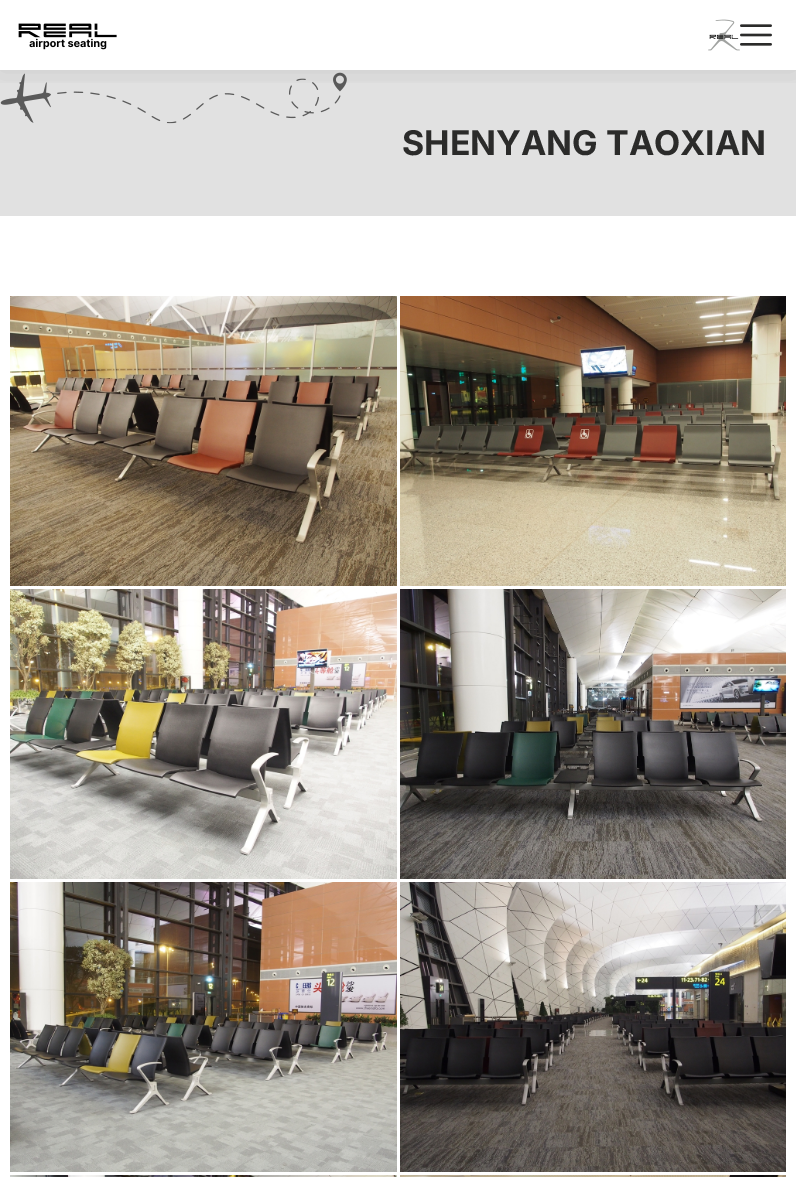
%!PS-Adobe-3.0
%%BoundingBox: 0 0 796 1177
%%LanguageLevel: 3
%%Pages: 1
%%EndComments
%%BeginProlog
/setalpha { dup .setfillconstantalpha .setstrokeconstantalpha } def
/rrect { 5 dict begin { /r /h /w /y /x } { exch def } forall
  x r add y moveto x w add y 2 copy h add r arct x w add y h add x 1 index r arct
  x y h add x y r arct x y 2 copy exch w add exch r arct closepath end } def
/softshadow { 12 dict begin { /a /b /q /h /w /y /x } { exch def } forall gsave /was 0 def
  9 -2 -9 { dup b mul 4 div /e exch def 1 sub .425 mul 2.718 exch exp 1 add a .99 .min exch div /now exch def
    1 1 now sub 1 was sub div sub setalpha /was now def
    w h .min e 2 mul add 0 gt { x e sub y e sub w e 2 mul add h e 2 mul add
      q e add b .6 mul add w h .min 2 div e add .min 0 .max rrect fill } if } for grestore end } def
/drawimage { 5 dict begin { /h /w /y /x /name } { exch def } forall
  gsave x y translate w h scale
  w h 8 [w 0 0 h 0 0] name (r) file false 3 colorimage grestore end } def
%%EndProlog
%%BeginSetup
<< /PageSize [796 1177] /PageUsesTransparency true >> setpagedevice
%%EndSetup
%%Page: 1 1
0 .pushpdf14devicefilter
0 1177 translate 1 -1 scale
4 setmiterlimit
1 setgray
0 0 796 1177 rectfill
0.882 setgray
0 70 796 146 rectfill
(images/4.raw) 0 72 347 52 drawimage
gsave
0 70 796 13 rectclip
0 setgray
0 0 796 70 0 15 0.1 softshadow
grestore
(images/1.raw) 18 23 99 27 drawimage
(images/2.raw) 708 19 32 32 drawimage
(images/3.raw) 740 24 32 22 drawimage
(images/5.raw) 10 296 387 290 drawimage
(images/6.raw) 400 296 386 290 drawimage
(images/7.raw) 10 589 387 290 drawimage
(images/8.raw) 400 589 386 290 drawimage
(images/9.raw) 10 882 387 290 drawimage
(images/10.raw) 400 882 386 290 drawimage
(images/11.raw) 10 1175 387 2 drawimage
(images/12.raw) 400 1175 386 2 drawimage
/Inter-Bold [34 0 0 -34 0 0] selectfont
0.169 0.169 0.165 setrgbcolor
402 155 moveto (SHENYANG TAOXIAN) show
.poppdf14devicefilter showpage
%%EOF
